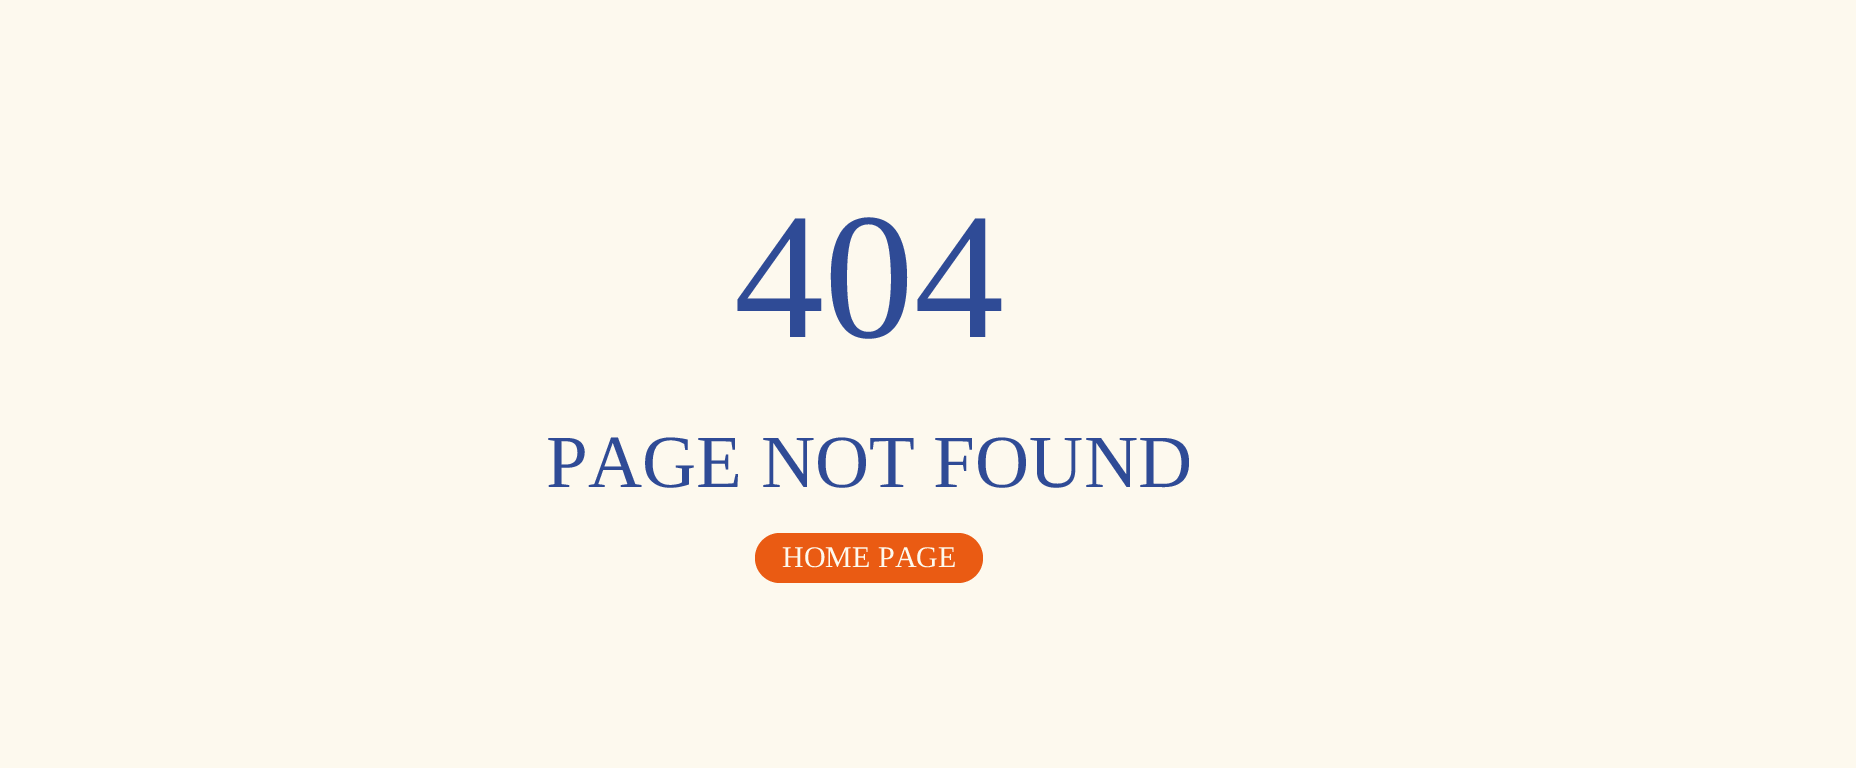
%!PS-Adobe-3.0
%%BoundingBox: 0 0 1856 768
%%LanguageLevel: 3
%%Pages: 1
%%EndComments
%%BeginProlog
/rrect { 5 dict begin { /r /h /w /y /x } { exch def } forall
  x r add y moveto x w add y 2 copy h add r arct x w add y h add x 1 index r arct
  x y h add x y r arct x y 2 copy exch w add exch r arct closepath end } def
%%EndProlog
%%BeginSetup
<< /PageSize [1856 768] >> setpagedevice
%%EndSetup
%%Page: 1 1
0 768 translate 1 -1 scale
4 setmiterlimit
0.992 0.976 0.933 setrgbcolor
0 0 1856 768 rectfill
0.918 0.357 0.075 setrgbcolor
755 533 228 50 25 rrect fill
/LiberationSerif-Regular [180 0 0 -180 0 0] selectfont
0.184 0.294 0.588 setrgbcolor
734 337 moveto (404) show
/LiberationSerif-Regular [75 0 0 -75 0 0] selectfont
546 487 moveto (PAGE NOT FOUND) show
/LiberationSerif-Regular [30 0 0 -30 0 0] selectfont
0.992 0.976 0.933 setrgbcolor
782 567 moveto (HOME PAGE) show
showpage
%%EOF
